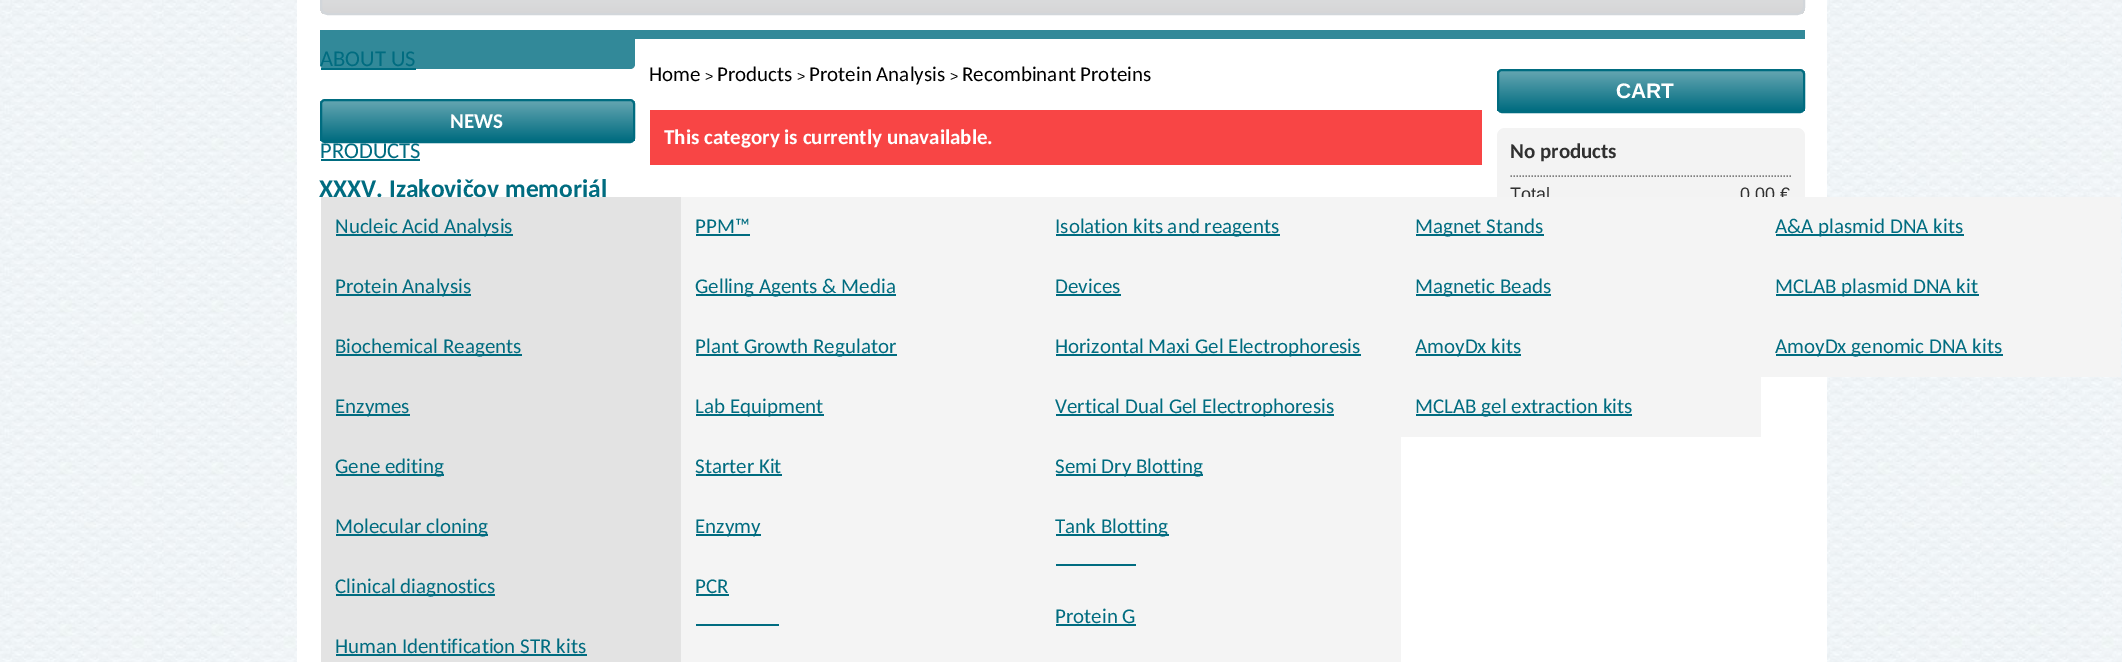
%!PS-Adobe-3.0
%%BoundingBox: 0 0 2122 662
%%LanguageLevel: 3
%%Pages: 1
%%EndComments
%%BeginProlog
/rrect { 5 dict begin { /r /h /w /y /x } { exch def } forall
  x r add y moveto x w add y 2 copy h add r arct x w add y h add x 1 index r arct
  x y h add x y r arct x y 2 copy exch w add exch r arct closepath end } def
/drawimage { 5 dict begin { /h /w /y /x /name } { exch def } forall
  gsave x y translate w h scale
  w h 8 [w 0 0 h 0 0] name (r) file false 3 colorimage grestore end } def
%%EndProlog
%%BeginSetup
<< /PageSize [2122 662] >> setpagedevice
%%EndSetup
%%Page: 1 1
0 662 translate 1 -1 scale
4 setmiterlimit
1 setgray
0 0 2122 662 rectfill
(images/1.raw) 0 0 2122 662 drawimage
297 0 1530 662 rectfill
0.196 0.537 0.6 setrgbcolor
320 30 1485 9 rectfill
gsave
320 -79 1485 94 8 rrect clip newpath
gsave newpath 320 0 moveto 1805 0 lineto 1805 14 lineto 320 14 lineto closepath clip newpath
<< /ShadingType 2 /ColorSpace /DeviceRGB /Coords [1062 -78 1062 14] /Extend [true true] /Function << /FunctionType 2 /Domain [0 1] /C0 [0.949 0.957 0.969] /C1 [0.839 0.839 0.843] /N 1 >> >> shfill grestore
grestore
0.824 0.839 0.855 setrgbcolor
2 setlinewidth
321 -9 1483 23 7 rrect stroke
0.196 0.537 0.6 setrgbcolor
newpath 320 39 moveto 635 39 lineto 635 64 lineto 635 67 633 69 630 69 curveto 325 69 lineto 322 69 320 67 320 64 curveto closepath fill
0 0.424 0.502 setrgbcolor
321 68 95 2 rectfill
321 159 99 2 rectfill
0.957 setgray
1041 197 360 465 rectfill
0 0.424 0.502 setrgbcolor
1056 564 80 2 rectfill
1056 624 80 2 rectfill
0.957 setgray
681 197 360 465 rectfill
0 0.424 0.502 setrgbcolor
696 234 54 2 rectfill
696 294 200 2 rectfill
696 354 201 2 rectfill
696 414 128 2 rectfill
696 474 86 2 rectfill
1056 234 224 2 rectfill
1056 294 65 2 rectfill
1056 354 305 2 rectfill
1056 414 278 2 rectfill
1056 474 147 2 rectfill
1056 534 113 2 rectfill
696 624 83 2 rectfill
696 534 65 2 rectfill
696 594 33 2 rectfill
gsave
320 99 315 44 5 rrect clip newpath
gsave newpath 320 101 moveto 635 101 lineto 635 141 lineto 320 141 lineto closepath clip newpath
<< /ShadingType 2 /ColorSpace /DeviceRGB /Coords [477 100 477 141] /Extend [true true] /Function << /FunctionType 2 /Domain [0 1] /C0 [0.4 0.651 0.698] /C1 [0 0.424 0.502] /N 1 >> >> shfill grestore
grestore
321 100 313 42 4 rrect stroke
0.973 0.271 0.271 setrgbcolor
650 110 832 55 rectfill
gsave
1497 69 308 44 5 rrect clip newpath
gsave newpath 1497 71 moveto 1805 71 lineto 1805 111 lineto 1497 111 lineto closepath clip newpath
<< /ShadingType 2 /ColorSpace /DeviceRGB /Coords [1651 70 1651 111] /Extend [true true] /Function << /FunctionType 2 /Domain [0 1] /C0 [0.4 0.651 0.698] /C1 [0 0.424 0.502] /N 1 >> >> shfill grestore
grestore
0 0.424 0.502 setrgbcolor
1498 70 306 42 4 rrect stroke
0.953 setgray
1497 128 308 162 8 rrect fill
0.498 setgray
1.5 setlinewidth
[1.5 1.5] 0 setdash
newpath 1510.5 176 moveto 1791 176 lineto stroke
/Carlito-Regular [22.5 0 0 -22.5 0 0] selectfont
0 0.424 0.502 setrgbcolor
320 66 moveto (ABOUT US) show
320 158 moveto (PRODUCTS) show
/Carlito-Regular [21 0 0 -21 0 0] selectfont
1055 623 moveto (Protein G) show
695 233 moveto (PPM™) show
695 293 moveto (Gelling Agents & Media) show
695 353 moveto (Plant Growth Regulator) show
695 413 moveto (Lab Equipment) show
695 473 moveto (Starter Kit) show
1055 233 moveto (Isolation kits and reagents) show
1055 293 moveto (Devices) show
1055 353 moveto (Horizontal Maxi Gel Electrophoresis) show
1055 413 moveto (Vertical Dual Gel Electrophoresis) show
1055 473 moveto (Semi Dry Blotting) show
1055 533 moveto (Tank Blotting) show
695 533 moveto (Enzymy) show
695 593 moveto (PCR) show
/Carlito-Bold [21 0 0 -21 0 0] selectfont
1 setgray
450 128 moveto (NEWS) show
/Carlito-Bold [25.5 0 0 -25.5 0 0] selectfont
0 0.424 0.502 setrgbcolor
319 197 moveto (XXXV. Izakovičov memoriál) show
0.89 setgray
321 197 360 465 rectfill
/Carlito-Regular [21 0 0 -21 0 0] selectfont
0 0.424 0.502 setrgbcolor
335 653 moveto (Human Identification STR kits) show
336 654 251 2 rectfill
336 594 159 2 rectfill
335 593 moveto (Clinical diagnostics) show
336 534 152 2 rectfill
335 533 moveto (Molecular cloning) show
336 474 108 2 rectfill
335 473 moveto (Gene editing) show
336 414 74 2 rectfill
335 413 moveto (Enzymes) show
336 354 186 2 rectfill
335 353 moveto (Biochemical Reagents) show
336 294 135 2 rectfill
335 293 moveto (Protein Analysis) show
336 234 177 2 rectfill
335 233 moveto (Nucleic Acid Analysis) show
0 setgray
649 81 moveto (Home) show
/LiberationSans-Regular [14 0 0 -14 0 0] selectfont
705 81 moveto (>) show
/Carlito-Regular [21 0 0 -21 0 0] selectfont
717 81 moveto (Products) show
/LiberationSans-Regular [14 0 0 -14 0 0] selectfont
797 81 moveto (>) show
/Carlito-Regular [21 0 0 -21 0 0] selectfont
809 81 moveto (Protein Analysis) show
/LiberationSans-Regular [14 0 0 -14 0 0] selectfont
950 81 moveto (>) show
/Carlito-Regular [21 0 0 -21 0 0] selectfont
962 81 moveto (Recombinant Proteins) show
/Carlito-Bold [21 0 0 -21 0 0] selectfont
1 setgray
664 144 moveto (This category is currently unavailable.) show
/LiberationSans-Bold [21 0 0 -21 0 0] selectfont
1616 98 moveto (CART) show
/Carlito-Bold [21 0 0 -21 0 0] selectfont
0.188 setgray
1510 158 moveto (No products) show
/LiberationSans-Regular [18 0 0 -18 0 0] selectfont
1510 200 moveto (Total) show
1740 200 moveto (0,00 €) show
0.957 setgray
1401 197 360 240 rectfill
0 0.424 0.502 setrgbcolor
1416 294 135 2 rectfill
/Carlito-Regular [21 0 0 -21 0 0] selectfont
1415 293 moveto (Magnetic Beads) show
1416 234 128 2 rectfill
1415 233 moveto (Magnet Stands) show
1416 354 105 2 rectfill
1415 353 moveto (AmoyDx kits) show
0.957 setgray
1761 197 360 180 rectfill
0 0.424 0.502 setrgbcolor
1776 294 203 2 rectfill
1775 293 moveto (MCLAB plasmid DNA kit) show
1776 234 188 2 rectfill
1775 233 moveto (A&A plasmid DNA kits) show
1776 354 227 2 rectfill
1775 353 moveto (AmoyDx genomic DNA kits) show
1416 414 216 2 rectfill
1415 413 moveto (MCLAB gel extraction kits) show
showpage
%%EOF
